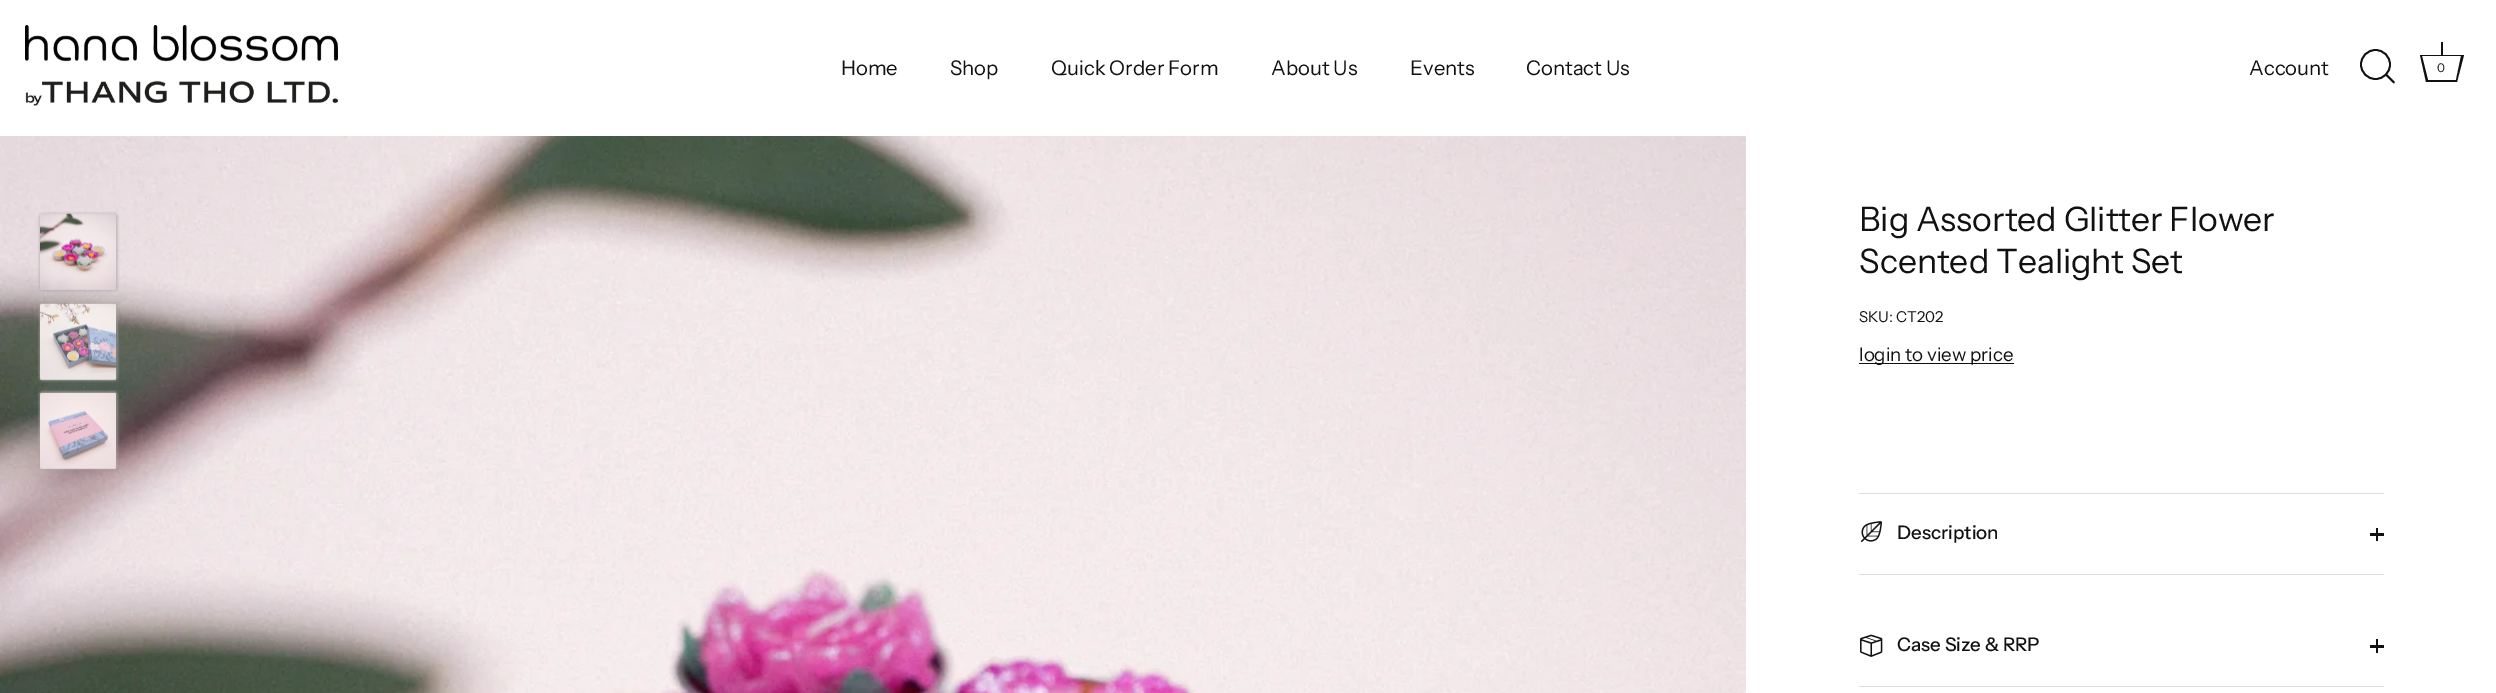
%!PS-Adobe-3.0
%%BoundingBox: 0 0 2496 693
%%LanguageLevel: 3
%%Pages: 1
%%EndComments
%%BeginProlog
/setalpha { dup .setfillconstantalpha .setstrokeconstantalpha } def
/rrect { 5 dict begin { /r /h /w /y /x } { exch def } forall
  x r add y moveto x w add y 2 copy h add r arct x w add y h add x 1 index r arct
  x y h add x y r arct x y 2 copy exch w add exch r arct closepath end } def
/softshadow { 12 dict begin { /a /b /q /h /w /y /x } { exch def } forall gsave /was 0 def
  9 -2 -9 { dup b mul 4 div /e exch def 1 sub .425 mul 2.718 exch exp 1 add a .99 .min exch div /now exch def
    1 1 now sub 1 was sub div sub setalpha /was now def
    w h .min e 2 mul add 0 gt { x e sub y e sub w e 2 mul add h e 2 mul add
      q e add b .6 mul add w h .min 2 div e add .min 0 .max rrect fill } if } for grestore end } def
/drawimage { 5 dict begin { /h /w /y /x /name } { exch def } forall
  gsave x y translate w h scale
  w h 8 [w 0 0 h 0 0] name (r) file false 3 colorimage grestore end } def
%%EndProlog
%%BeginSetup
<< /PageSize [2496 693] /PageUsesTransparency true >> setpagedevice
%%EndSetup
%%Page: 1 1
0 .pushpdf14devicefilter
0 693 translate 1 -1 scale
4 setmiterlimit
1 setgray
0 0 2496 693 rectfill
(images/1.raw) 25 25 313 81 drawimage
0.067 setgray
1.8 setlinewidth
newpath 2375.5 64.5 14.5 0 360 arc closepath stroke
1 setlinecap
1 setlinejoin
newpath 2394 82.5 moveto 2386 74.5 lineto stroke
2441 42 2 13 rectfill
newpath 2461 56 moveto 2456 80 lineto 2428 80 lineto 2422 56 lineto 2461 56 lineto 2464 55 moveto 2420 55 lineto 2426 82 lineto 2457 82 lineto closepath fill
(images/2.raw) 0 136 1746 557 drawimage
0.655 setgray
39 213 79 78 4 1 0.6 softshadow
(images/3.raw) 40 213 76 77 drawimage
39 303 79 78 4 1 0.6 softshadow
(images/4.raw) 40 303 77 78 drawimage
0.3 setalpha
1 setgray
40 304 76 76 rectfill
1 setalpha
0.655 setgray
39 391 79 79 4 1 0.6 softshadow
(images/5.raw) 40 392 77 77 drawimage
0.3 setalpha
1 setgray
40 393 76 76 rectfill
1 setalpha
0.067 setgray
1859 363 155 1 rectfill
0.867 setgray
1859 493 525 1 rectfill
1859 574 525 1 rectfill
(images/6.raw) 1861 521 22 21 drawimage
0.067 setgray
2376 528 2 13 rectfill
2370 533 14 3 rectfill
0.867 setgray
1859 686 525 1 rectfill
(images/7.raw) 1860 634 23 23 drawimage
0.067 setgray
2376 639 2 14 rectfill
2370 645 14 3 rectfill
/InstrumentSans-Regular [20.25 0 0 -20.25 0 0] selectfont
841 75 moveto (Home) show
950 75 moveto (Shop) show
1051 75 moveto (Quick Order Form) show
1271 75 moveto (About Us) show
1410 75 moveto (Events) show
1526 75 moveto (Contact Us) show
2249 75 moveto (Account) show
/InstrumentSans-Regular [12 0 0 -12 0 0] selectfont
2437 72 moveto (0) show
/InstrumentSans-Regular [33.75 0 0 -33.75 0 0] selectfont
1859 231 moveto (Big Assorted Glitter Flower) show
1859 273 moveto (Scented Tealight Set) show
/InstrumentSans-Regular [15 0 0 -15 0 0] selectfont
1859 322 moveto (SKU: CT202) show
/InstrumentSans-Regular [18.75 0 0 -18.75 0 0] selectfont
1859 361 moveto (login to view price) show
/InstrumentSans-Medium [18.75 0 0 -18.75 0 0] selectfont
1897 539 moveto (Description) show
1897 651 moveto (Case Size & RRP) show
.poppdf14devicefilter showpage
%%EOF
